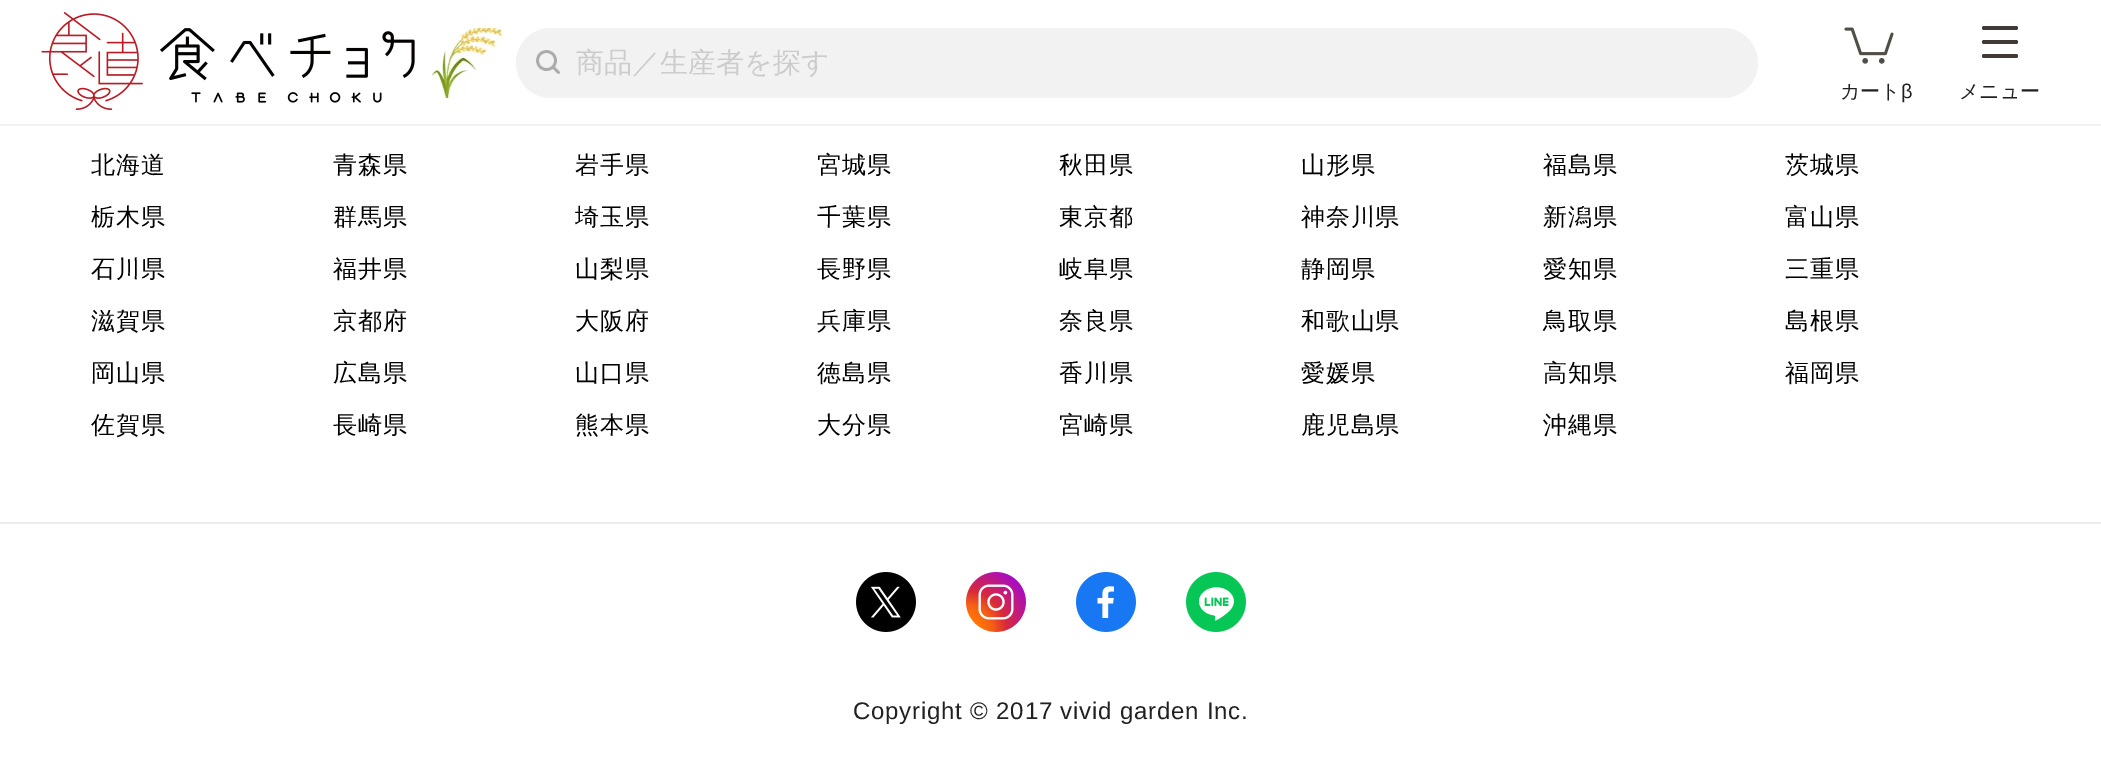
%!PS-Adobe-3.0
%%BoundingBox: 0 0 2101 775
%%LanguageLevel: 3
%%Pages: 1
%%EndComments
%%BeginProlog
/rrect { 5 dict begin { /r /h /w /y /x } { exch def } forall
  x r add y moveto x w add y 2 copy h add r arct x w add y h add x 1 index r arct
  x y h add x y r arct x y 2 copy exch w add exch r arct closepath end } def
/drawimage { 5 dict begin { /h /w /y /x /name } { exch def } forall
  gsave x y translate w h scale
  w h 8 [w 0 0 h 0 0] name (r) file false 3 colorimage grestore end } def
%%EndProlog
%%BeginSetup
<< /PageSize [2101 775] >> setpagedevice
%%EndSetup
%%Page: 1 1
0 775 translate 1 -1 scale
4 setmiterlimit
1 setgray
0 0 2101 775 rectfill
0.949 setgray
0 124 2101 2 rectfill
(images/1.raw) 41 12 374 98 drawimage
(images/2.raw) 432 28 70 70 drawimage
516 28 1242 70 35 rrect fill
(images/3.raw) 536 50 24 24 drawimage
(images/4.raw) 1844 27 50 37 drawimage
0.251 0.227 0.224 setrgbcolor
1982 26 36 4 2 rrect fill
1982 40 36 4 2 rrect fill
1982 54 36 4 2 rrect fill
0.929 setgray
0 522 2101 2 rectfill
(images/5.raw) 856 572 60 60 drawimage
(images/6.raw) 966 572 60 60 drawimage
(images/7.raw) 1076 572 60 60 drawimage
(images/8.raw) 1186 572 60 60 drawimage
/WenQuanYiZenHei-Medium [28 0 0 -28 0 0] selectfont
0.8 setgray
576 72 moveto (商品／生産者を探す) show
/WenQuanYiZenHei-Medium [20 0 0 -20 0 0] selectfont
0.129 setgray
1840 98 moveto (カート) show
/LiberationSans-Regular [20 0 0 -20 0 0] selectfont
1901 98 moveto (β) show
/WenQuanYiZenHei-Medium [20 0 0 -20 0 0] selectfont
1959 98 moveto (メニュー) show
/WenQuanYiZenHei-Medium [24 0 0 -24 0 0] selectfont
0 setgray
91 173 moveto 0.8 0 (北海道) ashow
333 173 moveto 0.8 0 (青森県) ashow
575 173 moveto 0.8 0 (岩手県) ashow
817 173 moveto 0.8 0 (宮城県) ashow
1059 173 moveto 0.8 0 (秋田県) ashow
1301 173 moveto 0.8 0 (山形県) ashow
1543 173 moveto 0.8 0 (福島県) ashow
1785 173 moveto 0.8 0 (茨城県) ashow
91 225 moveto 0.8 0 (栃木県) ashow
333 225 moveto 0.8 0 (群馬県) ashow
575 225 moveto 0.8 0 (埼玉県) ashow
817 225 moveto 0.8 0 (千葉県) ashow
1059 225 moveto 0.8 0 (東京都) ashow
1301 225 moveto 0.8 0 (神奈川県) ashow
1543 225 moveto 0.8 0 (新潟県) ashow
1785 225 moveto 0.8 0 (富山県) ashow
91 277 moveto 0.8 0 (石川県) ashow
333 277 moveto 0.8 0 (福井県) ashow
575 277 moveto 0.8 0 (山梨県) ashow
817 277 moveto 0.8 0 (長野県) ashow
1059 277 moveto 0.8 0 (岐阜県) ashow
1301 277 moveto 0.8 0 (静岡県) ashow
1543 277 moveto 0.8 0 (愛知県) ashow
1785 277 moveto 0.8 0 (三重県) ashow
91 329 moveto 0.8 0 (滋賀県) ashow
333 329 moveto 0.8 0 (京都府) ashow
575 329 moveto 0.8 0 (大阪府) ashow
817 329 moveto 0.8 0 (兵庫県) ashow
1059 329 moveto 0.8 0 (奈良県) ashow
1301 329 moveto 0.8 0 (和歌山県) ashow
1543 329 moveto 0.8 0 (鳥取県) ashow
1785 329 moveto 0.8 0 (島根県) ashow
91 381 moveto 0.8 0 (岡山県) ashow
333 381 moveto 0.8 0 (広島県) ashow
575 381 moveto 0.8 0 (山口県) ashow
817 381 moveto 0.8 0 (徳島県) ashow
1059 381 moveto 0.8 0 (香川県) ashow
1301 381 moveto 0.8 0 (愛媛県) ashow
1543 381 moveto 0.8 0 (高知県) ashow
1785 381 moveto 0.8 0 (福岡県) ashow
91 433 moveto 0.8 0 (佐賀県) ashow
333 433 moveto 0.8 0 (長崎県) ashow
575 433 moveto 0.8 0 (熊本県) ashow
817 433 moveto 0.8 0 (大分県) ashow
1059 433 moveto 0.8 0 (宮崎県) ashow
1301 433 moveto 0.8 0 (鹿児島県) ashow
1543 433 moveto 0.8 0 (沖縄県) ashow
/LiberationSans-Regular [24 0 0 -24 0 0] selectfont
0.129 setgray
853 719 moveto 0.8 0 (Copyright © 2017 vivid garden Inc.) ashow
showpage
%%EOF
